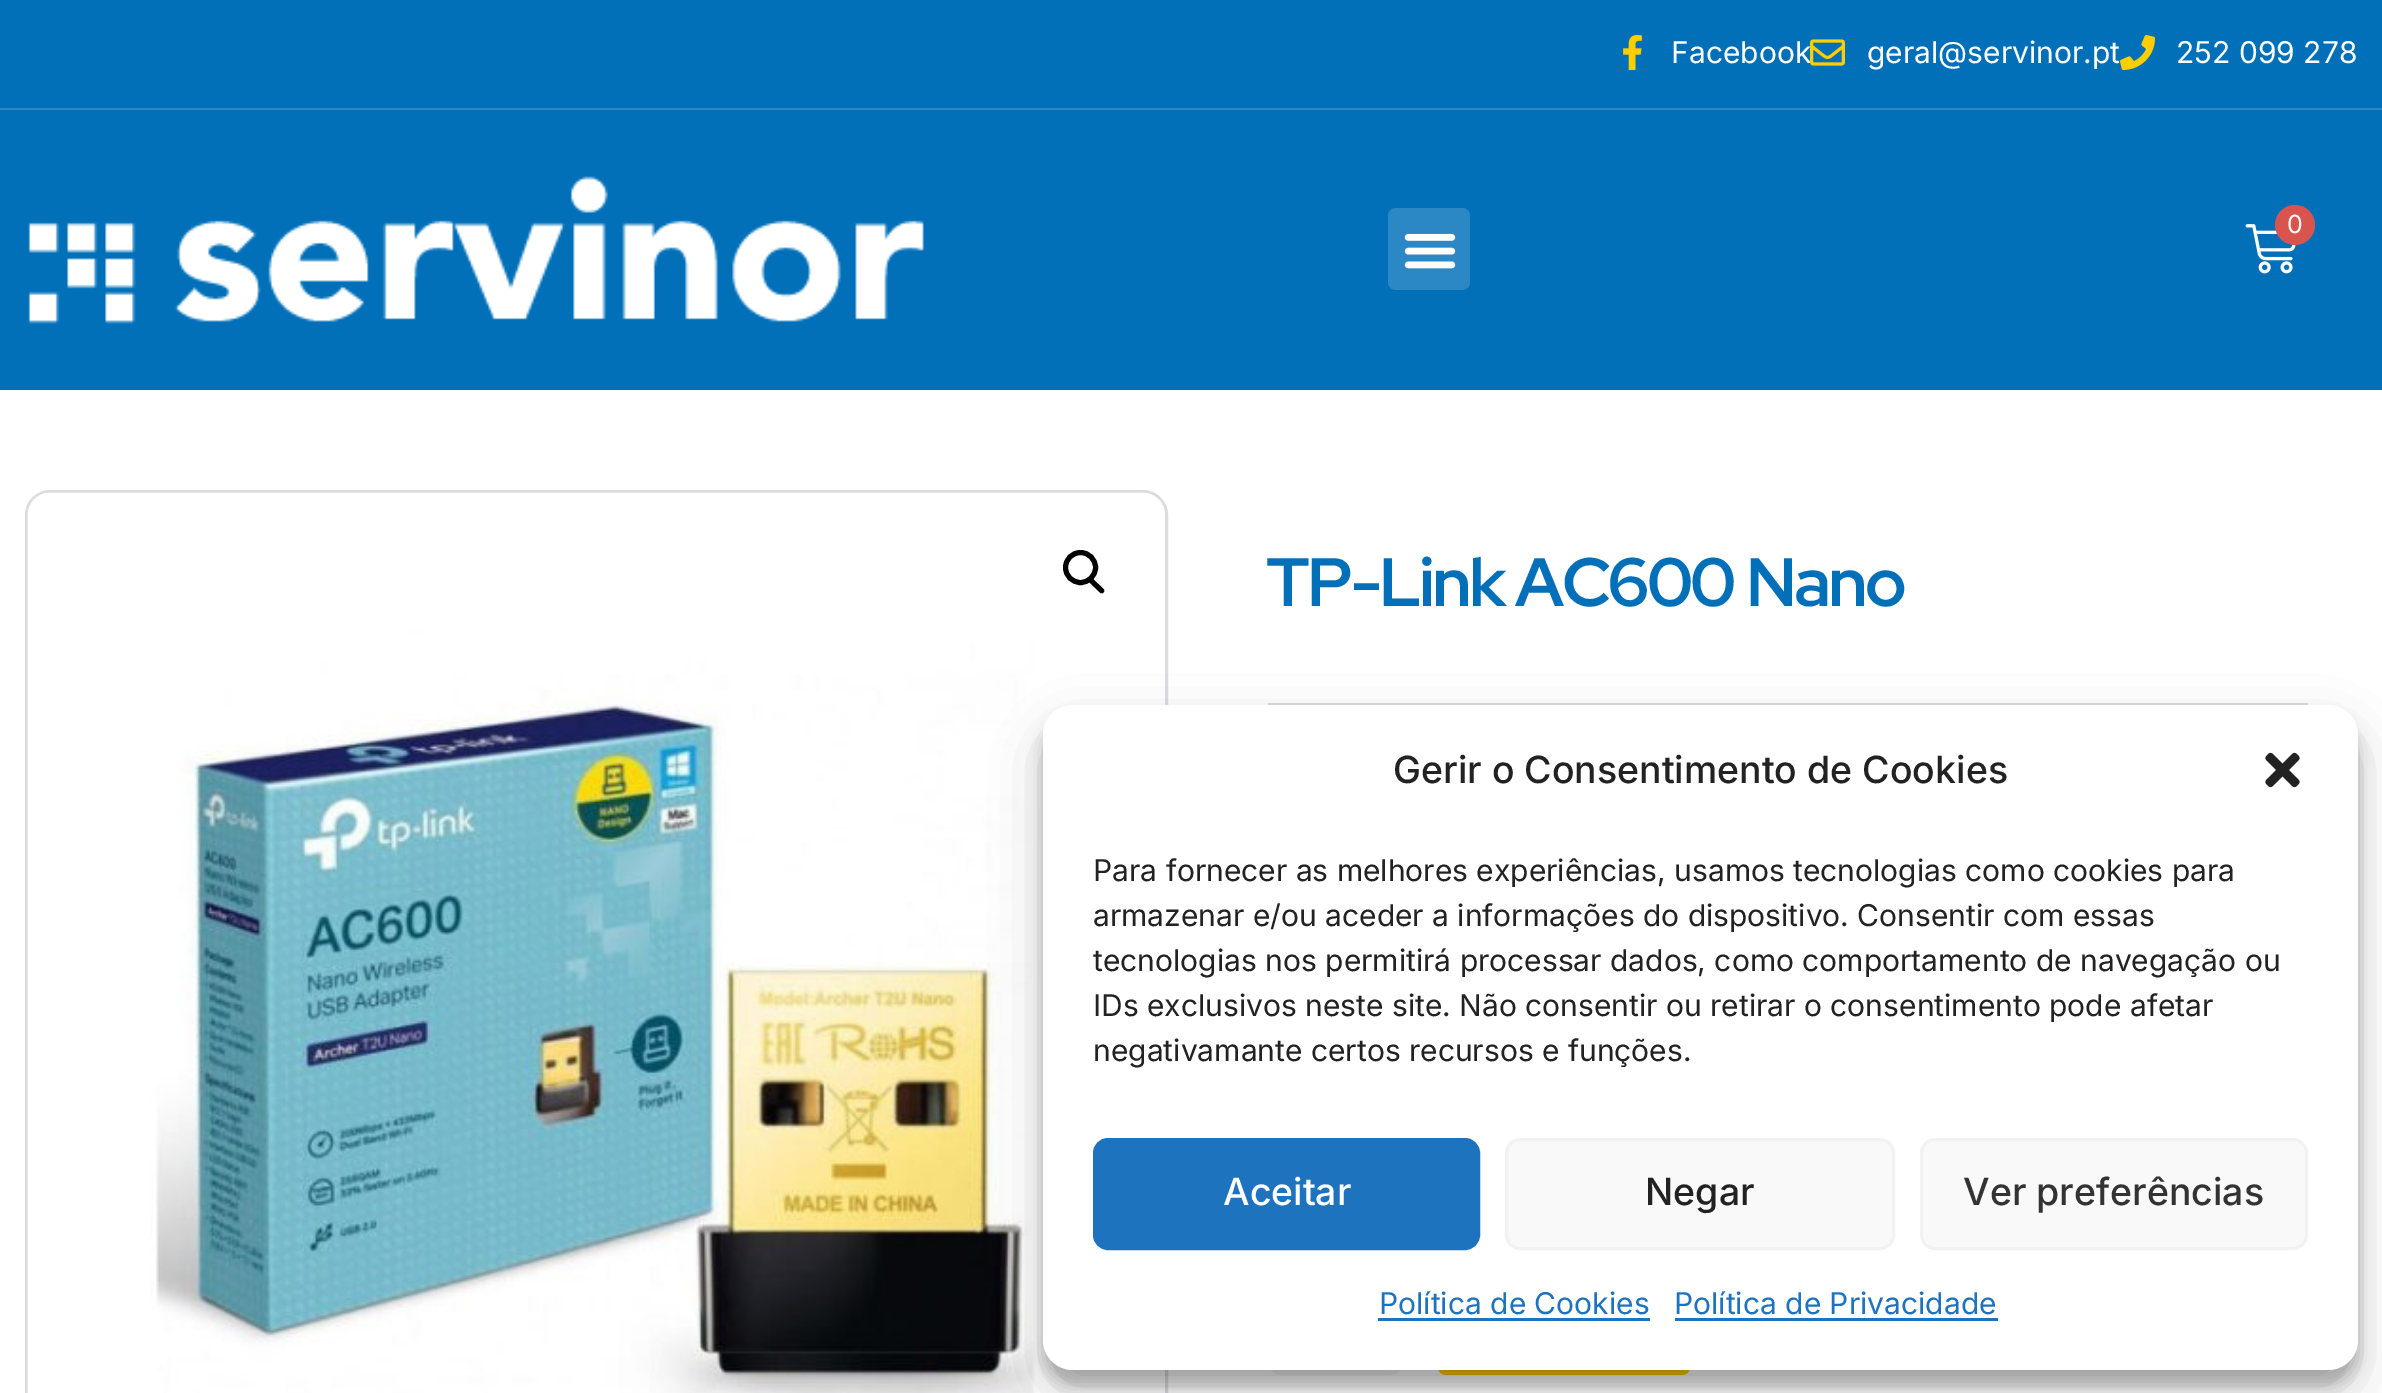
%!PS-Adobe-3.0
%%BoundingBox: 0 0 2382 1393
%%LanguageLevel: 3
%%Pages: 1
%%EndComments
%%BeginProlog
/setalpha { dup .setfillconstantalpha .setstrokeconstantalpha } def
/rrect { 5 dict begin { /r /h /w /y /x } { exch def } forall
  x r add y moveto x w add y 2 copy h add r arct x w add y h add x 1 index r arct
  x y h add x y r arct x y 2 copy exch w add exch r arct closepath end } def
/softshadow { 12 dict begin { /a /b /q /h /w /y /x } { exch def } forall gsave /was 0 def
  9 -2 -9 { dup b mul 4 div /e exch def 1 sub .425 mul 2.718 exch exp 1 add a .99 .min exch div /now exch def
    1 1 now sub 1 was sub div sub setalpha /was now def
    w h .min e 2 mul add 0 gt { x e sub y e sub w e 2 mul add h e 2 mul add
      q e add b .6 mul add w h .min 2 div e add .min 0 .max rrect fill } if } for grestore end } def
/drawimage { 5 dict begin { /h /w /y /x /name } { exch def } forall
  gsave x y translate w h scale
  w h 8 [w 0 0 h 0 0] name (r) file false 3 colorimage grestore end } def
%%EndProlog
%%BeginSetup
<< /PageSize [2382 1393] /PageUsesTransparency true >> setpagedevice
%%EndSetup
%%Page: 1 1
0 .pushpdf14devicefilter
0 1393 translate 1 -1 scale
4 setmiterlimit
1 setgray
0 0 2382 1393 rectfill
0.004 0.439 0.725 setrgbcolor
0 0 2382 108 rectfill
0.173 0.533 0.773 setrgbcolor
0 108 2382 2 rectfill
(images/1.raw) 1623 35 19 35 drawimage
(images/3.raw) 2120 35 35 35 drawimage
0.004 0.439 0.725 setrgbcolor
0 110 2382 280 rectfill
(images/4.raw) 28 176 896 148 drawimage
0.173 0.533 0.773 setrgbcolor
1388 208 82 82 8 rrect fill
(images/5.raw) 1404 233 52 36 drawimage
(images/6.raw) 2245 224 51 50 drawimage
0.851 0.325 0.31 setrgbcolor
newpath 2295 225 20 0 360 arc closepath fill
0.863 0.863 0.871 setrgbcolor
3 setlinewidth
26.5 491.5 1140 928 23.5 rrect stroke
(images/7.raw) 27 492 1138 901 drawimage
0 setgray
5 setlinewidth
newpath 1080.5 567.5 15 0 360 arc closepath stroke
newpath 1089 578.5 moveto 1090 577.5 1091.5 577.5 1092.5 578.5 curveto 1103.5 589 lineto 1104.5 590 1104.5 591.5 1103.5 592.5 curveto 1102.5 593.5 1101 593.5 1100 592.5 curveto 1089 582 lineto 1088 581 1088 579.5 1089 578.5 curveto closepath fill
0.863 0.863 0.871 setrgbcolor
1268 703 1040 2 rectfill
0.957 setgray
1269.5 1274.5 132 99 11.5 rrect gsave fill grestore
3 setlinewidth
stroke
1 0.808 0 setrgbcolor
1438 1273 252 102 8 rrect fill
0 setgray
1043 720 1315 665 30 7.5 0.23 softshadow
1043 730 1315 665 30 25 0.19 softshadow
1 setgray
1043 705 1315 665 30 rrect fill
(images/8.raw) 2265 752 35 36 drawimage
0.118 0.451 0.745 setrgbcolor
1094.5 1139.5 384 109 13.5 rrect gsave fill grestore
stroke
0.976 setgray
1506.5 1139.5 387 109 13.5 rrect gsave fill grestore
0.949 setgray
stroke
0.976 setgray
1921.5 1139.5 385 109 13.5 rrect gsave fill grestore
0.949 setgray
stroke
0.118 0.451 0.745 setrgbcolor
1378 1318 272 3 rectfill
1675 1318 323 3 rectfill
/Inter-Regular [30 0 0 -30 0 0] selectfont
1 setgray
1671 63 moveto (Facebook) show
(images/2.raw) 1810 39 35 27 drawimage
1867 63 moveto (geral@servinor.pt) show
2176 63 moveto (252 099 278) show
/Inter-Regular [25 0 0 -25 0 0] selectfont
2287 233 moveto (0) show
/RedHatDisplay-Bold [68.25 0 0 -68.25 0 0] selectfont
0.004 0.439 0.725 setrgbcolor
1266 606 moveto -2.5 0 (TP-Link AC600 Nano) ashow
/Inter-Medium [37.5 0 0 -37.5 0 0] selectfont
0.133 setgray
1393 783 moveto (Gerir o Consentimento de Cookies) show
/Inter-Regular [30 0 0 -30 0 0] selectfont
1093 881 moveto (Para fornecer as melhores experiências, usamos tecnologias como cookies para) show
1093 926 moveto (armazenar e/ou aceder a informações do dispositivo. Consentir com essas) show
gsave
1093 850 1215 238 rectclip
1093 971 moveto (tecnologias nos permitirá processar dados, como comportamento de navegação ou) show
grestore
1093 1016 moveto (IDs exclusivos neste site. Não consentir ou retirar o consentimento pode afetar) show
1093 1061 moveto (negativamante certos recursos e funções.) show
/Inter-Medium [37.5 0 0 -37.5 0 0] selectfont
1 setgray
1223 1205 moveto (Aceitar) show
0.133 setgray
1645 1205 moveto (Negar) show
0.2 setgray
1963 1205 moveto (Ver preferências) show
/Inter-Regular [30 0 0 -30 0 0] selectfont
0.118 0.451 0.745 setrgbcolor
1379 1314 moveto (Política de Cookies) show
1674 1314 moveto (Política de Privacidade) show
.poppdf14devicefilter showpage
%%EOF
